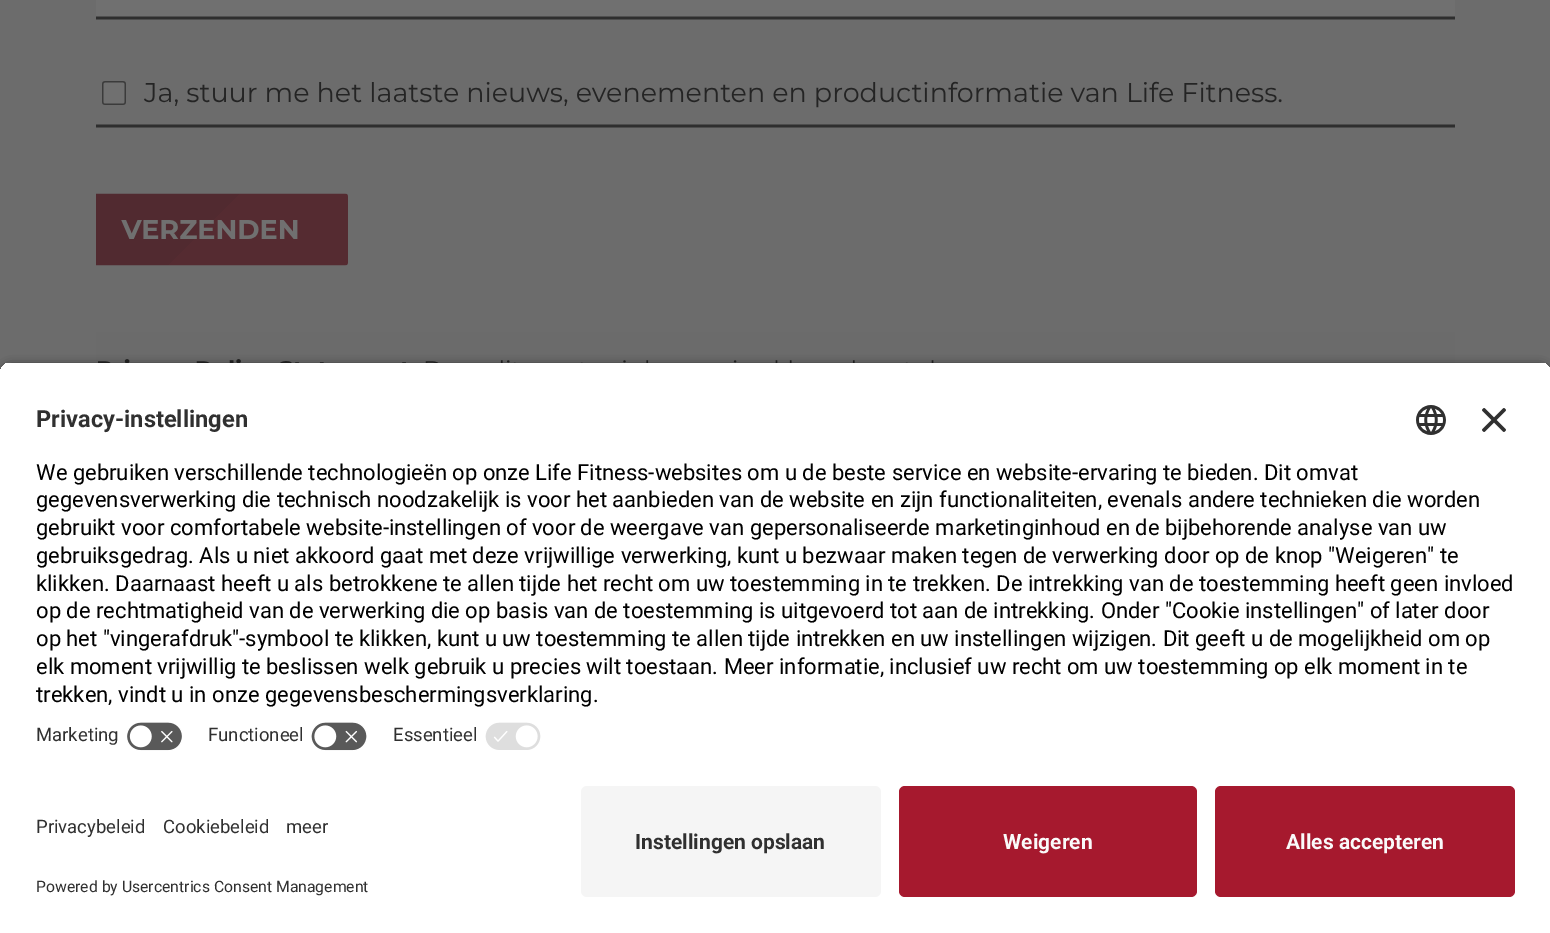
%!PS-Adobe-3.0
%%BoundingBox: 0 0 1550 933
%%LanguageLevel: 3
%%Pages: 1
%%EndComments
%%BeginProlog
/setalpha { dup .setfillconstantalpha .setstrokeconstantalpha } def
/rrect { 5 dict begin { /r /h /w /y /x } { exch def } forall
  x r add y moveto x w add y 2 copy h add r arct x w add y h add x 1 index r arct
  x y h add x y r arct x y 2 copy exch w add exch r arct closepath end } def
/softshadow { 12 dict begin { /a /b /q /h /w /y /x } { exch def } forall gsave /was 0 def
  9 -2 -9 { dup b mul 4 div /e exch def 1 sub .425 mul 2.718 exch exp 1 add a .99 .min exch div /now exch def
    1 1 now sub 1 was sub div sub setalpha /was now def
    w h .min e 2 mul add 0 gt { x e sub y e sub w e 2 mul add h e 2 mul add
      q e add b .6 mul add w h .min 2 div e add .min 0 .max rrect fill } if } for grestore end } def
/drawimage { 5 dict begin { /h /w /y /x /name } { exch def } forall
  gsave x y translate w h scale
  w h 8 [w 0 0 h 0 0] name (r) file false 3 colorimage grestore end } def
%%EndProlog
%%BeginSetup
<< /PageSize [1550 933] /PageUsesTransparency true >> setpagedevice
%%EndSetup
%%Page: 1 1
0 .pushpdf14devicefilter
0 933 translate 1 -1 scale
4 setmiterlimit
1 setgray
0 0 1550 933 rectfill
gsave newpath 0 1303 moveto 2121 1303 lineto 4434 -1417 lineto 0 -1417 lineto closepath clip newpath
<< /ShadingType 2 /ColorSpace /DeviceRGB /Coords [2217 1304 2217 -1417] /Extend [true true] /Function << /FunctionType 2 /Domain [0 1] /C0 [0.42 0.42 0.42] /C1 [0.427 0.427 0.427] /N 1 >> >> shfill grestore
(images/1.raw) 96 0 1359 363 drawimage
0 setgray
0 366 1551 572 12 5 0.8 softshadow
gsave
newpath 12 362 moveto 1539 362 lineto 1545.5 362 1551 367.5 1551 374 curveto 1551 774 lineto 0 774 lineto 0 374 lineto 0 367.5 5.5 362 12 362 curveto closepath clip newpath
1 setgray
0 363 1550 411 rectfill
0 363 1550 351 rectfill
grestore
(images/2.raw) 1416 405 30 30 drawimage
(images/3.raw) 1482 408 24 24 drawimage
(images/4.raw) 127 722 55 29 drawimage
(images/5.raw) 311 722 56 29 drawimage
(images/6.raw) 485 722 56 28 drawimage
1 setgray
0 774 1550 159 rectfill
0.961 setgray
581 786 300 111 6 rrect fill
0.651 0.098 0.18 setrgbcolor
899 786 298 111 6 rrect fill
1215 786 300 111 6 rrect fill
/Roboto-Bold [23.6 0 0 -23.6 0 0] selectfont
0.188 setgray
36 427 moveto (Privacy-instellingen) show
/Roboto-Regular [22 0 0 -22 0 0] selectfont
0 setgray
36 480 moveto (We gebruiken verschillende technologieën op onze Life Fitness-websites om u de beste service en website-ervaring te bieden. Dit omvat) show
36 507 moveto (gegevensverwerking die technisch noodzakelijk is voor het aanbieden van de website en zijn functionaliteiten, evenals andere technieken die worden) show
36 535 moveto (gebruikt voor comfortabele website-instellingen of voor de weergave van gepersonaliseerde marketinginhoud en de bijbehorende analyse van uw) show
36 563 moveto (gebruiksgedrag. Als u niet akkoord gaat met deze vrijwillige verwerking, kunt u bezwaar maken tegen de verwerking door op de knop "Weigeren" te) show
36 591 moveto (klikken. Daarnaast heeft u als betrokkene te allen tijde het recht om uw toestemming in te trekken. De intrekking van de toestemming heeft geen invloed) show
36 618 moveto (op de rechtmatigheid van de verwerking die op basis van de toestemming is uitgevoerd tot aan de intrekking. Onder "Cookie instellingen" of later door) show
36 646 moveto (op het "vingerafdruk"-symbool te klikken, kunt u uw toestemming te allen tijde intrekken en uw instellingen wijzigen. Dit geeft u de mogelijkheid om op) show
36 674 moveto (elk moment vrijwillig te beslissen welk gebruik u precies wilt toestaan. Meer informatie, inclusief uw recht om uw toestemming op elk moment in te) show
36 702 moveto (trekken, vindt u in onze gegevensbeschermingsverklaring.) show
/Roboto-Regular [18.5 0 0 -18.5 0 0] selectfont
0.188 setgray
36 741 moveto (Marketing) show
208 741 moveto (Functioneel) show
393 741 moveto (Essentieel) show
36 833 moveto (Privacybeleid) show
163 833 moveto (Cookiebeleid) show
286 833 moveto (meer) show
/Roboto-Regular [15.75 0 0 -15.75 0 0] selectfont
36 892 moveto (Powered by Usercentrics Consent Management) show
/Roboto-Bold [21 0 0 -21 0 0] selectfont
635 849 moveto (Instellingen opslaan) show
0.98 setgray
1003 849 moveto (Weigeren) show
1286 849 moveto (Alles accepteren) show
.poppdf14devicefilter showpage
%%EOF
